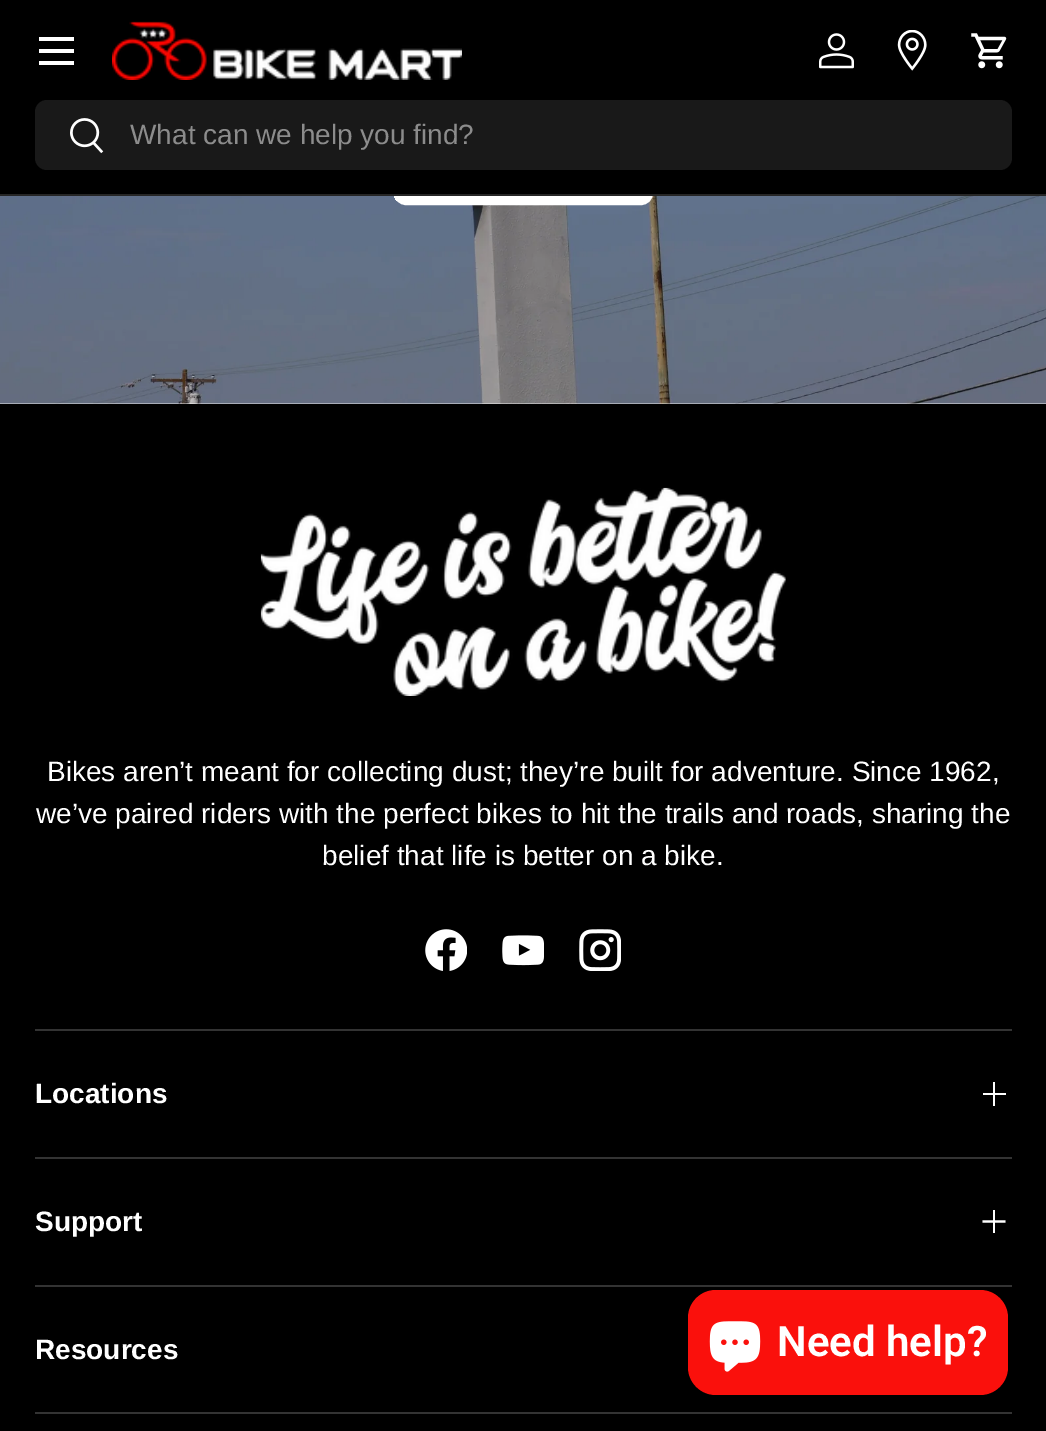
%!PS-Adobe-3.0
%%BoundingBox: 0 0 1046 1431
%%LanguageLevel: 3
%%Pages: 1
%%EndComments
%%BeginProlog
/rrect { 5 dict begin { /r /h /w /y /x } { exch def } forall
  x r add y moveto x w add y 2 copy h add r arct x w add y h add x 1 index r arct
  x y h add x y r arct x y 2 copy exch w add exch r arct closepath end } def
/drawimage { 5 dict begin { /h /w /y /x /name } { exch def } forall
  gsave x y translate w h scale
  w h 8 [w 0 0 h 0 0] name (r) file false 3 colorimage grestore end } def
%%EndProlog
%%BeginSetup
<< /PageSize [1046 1431] >> setpagedevice
%%EndSetup
%%Page: 1 1
0 1431 translate 1 -1 scale
4 setmiterlimit
1 setgray
0 0 1046 1431 rectfill
(images/6.raw) 0 196 1046 208 drawimage
gsave
394 126 259 79 12 rrect clip newpath
gsave newpath 394 196 moveto 649 196 lineto 649 201 lineto 394 201 lineto closepath clip newpath
<< /ShadingType 2 /ColorSpace /DeviceRGB /Coords [-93 75 636 256] /Extend [true true] /Function << /FunctionType 3 /Domain [0 1] /Functions [<< /FunctionType 2 /Domain [0 1] /C0 [0.902 0.902 0.902] /C1 [0.902 0.902 0.902] /N 1 >> << /FunctionType 2 /Domain [0 1] /C0 [1 1 1] /C1 [1 1 1] /N 1 >>] /Bounds [0.6] /Encode [0 1 0 1] >> >> shfill grestore
grestore
4 setlinewidth
396 128 255 75 10 rrect stroke
0 setgray
0 0 1046 194 rectfill
0.149 setgray
0 194 1046 2 rectfill
1 setgray
39 37 35 4 rectfill
39 61 35 4 rectfill
39 49 35 4 rectfill
(images/1.raw) 112 21 350 59 drawimage
(images/2.raw) 819 33 35 36 drawimage
(images/3.raw) 897 30 30 41 drawimage
(images/4.raw) 971 33 36 36 drawimage
0.098 setgray
35 100 977 70 12 rrect fill
(images/5.raw) 70 118 34 36 drawimage
0 setgray
0 404 1046 1027 rectfill
(images/7.raw) 260 487 526 209 drawimage
(images/8.raw) 425 929 42 42 drawimage
(images/9.raw) 502 935 42 31 drawimage
(images/10.raw) 579 929 42 42 drawimage
0.2 setgray
35 1029 977 2 rectfill
35 1157 977 2 rectfill
(images/11.raw) 983 1082 23 24 drawimage
35 1285 977 2 rectfill
1 setgray
2.2 setlinewidth
newpath 982.5 1221.5 moveto 1005.5 1221.5 lineto stroke
993 1210 2 23 rectfill
0.2 setgray
35 1412 977 2 rectfill
0.98 0.063 0.047 setrgbcolor
688 1290 320 105 28 rrect fill
(images/12.raw) 709 1321 52 51 drawimage
/LiberationSans-Regular [28 0 0 -28 0 0] selectfont
0.549 setgray
130 144 moveto (What can we help you find?) show
1 setgray
47 781 moveto (Bikes aren’t meant for collecting dust; they’re built for adventure. Since 1962,) show
36 823 moveto (we’ve paired riders with the perfect bikes to hit the trails and roads, sharing the) show
322 865 moveto (belief that life is better on a bike.) show
/LiberationSans-Bold [28 0 0 -28 0 0] selectfont
35 1103 moveto (Locations) show
35 1231 moveto (Support) show
35 1359 moveto (Resources) show
/Roboto-SemiBold [42 0 0 -42 0 0] selectfont
777 1356 moveto (Need help?) show
showpage
%%EOF
